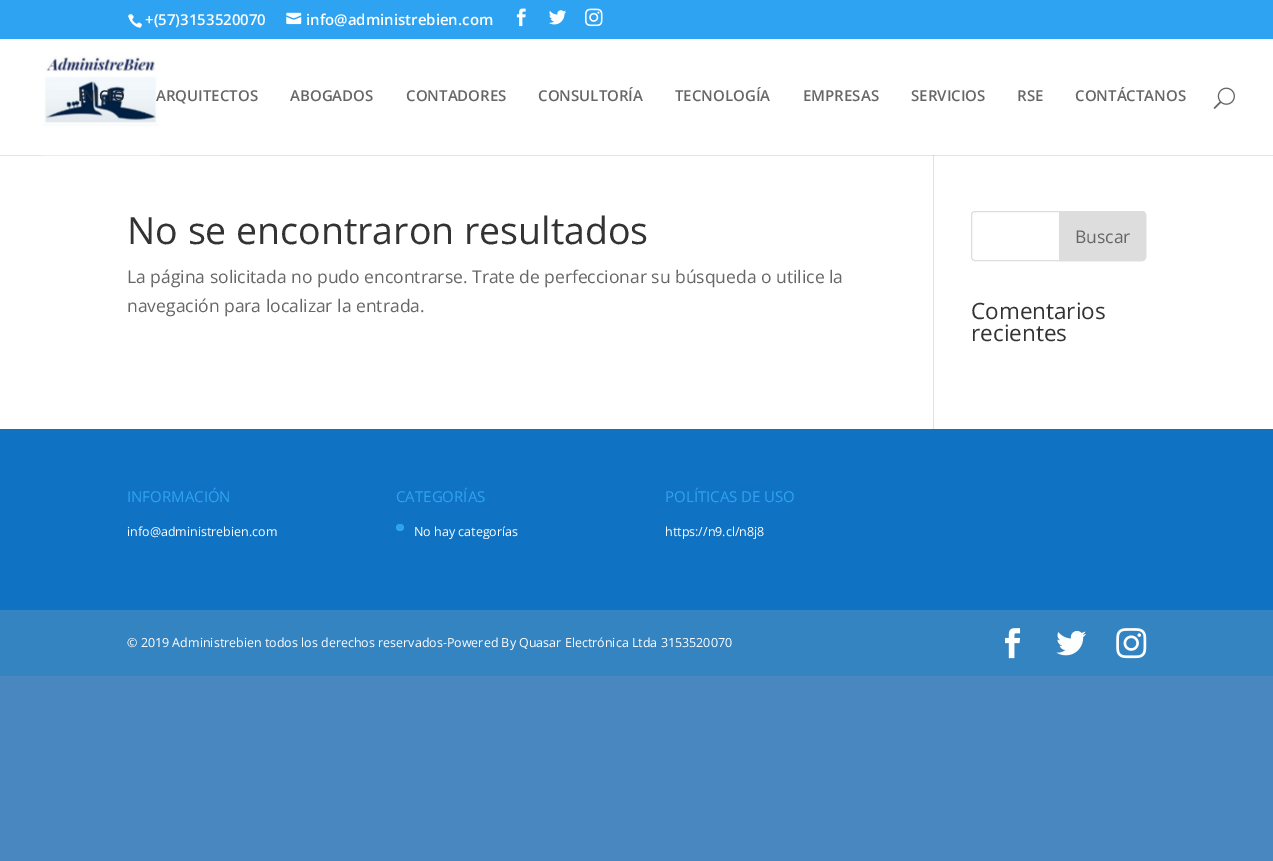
%!PS-Adobe-3.0
%%BoundingBox: 0 0 1273 861
%%LanguageLevel: 3
%%Pages: 1
%%EndComments
%%BeginProlog
/setalpha { dup .setfillconstantalpha .setstrokeconstantalpha } def
/rrect { 5 dict begin { /r /h /w /y /x } { exch def } forall
  x r add y moveto x w add y 2 copy h add r arct x w add y h add x 1 index r arct
  x y h add x y r arct x y 2 copy exch w add exch r arct closepath end } def
/drawimage { 5 dict begin { /h /w /y /x /name } { exch def } forall
  gsave x y translate w h scale
  w h 8 [w 0 0 h 0 0] name (r) file false 3 colorimage grestore end } def
%%EndProlog
%%BeginSetup
<< /PageSize [1273 861] /PageUsesTransparency true >> setpagedevice
%%EndSetup
%%Page: 1 1
0 .pushpdf14devicefilter
0 861 translate 1 -1 scale
4 setmiterlimit
0.282 0.529 0.749 setrgbcolor
0 0 1273 861 rectfill
0.18 0.639 0.949 setrgbcolor
0 0 1273 39 rectfill
(images/1.raw) 128 14 14 14 drawimage
(images/2.raw) 286 12 16 13 drawimage
(images/3.raw) 516 8 10 19 drawimage
(images/4.raw) 549 10 17 15 drawimage
(images/5.raw) 585 8 18 19 drawimage
1 setgray
0 39 1273 390 rectfill
0.886 setgray
933 155 1 274 rectfill
0.1 setalpha
0 setgray
newpath 0 155 moveto 0 156 lineto 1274 156 lineto 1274 39 lineto 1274 155 lineto closepath fill
1 setalpha
(images/6.raw) 42 39 119 117 drawimage
(images/7.raw) 1213 87 22 22 drawimage
0.867 setgray
971.5 211.5 174 49 3.5 rrect stroke
newpath 1059.5 211.5 moveto 1142 211.5 lineto 1144 211.5 1145.5 213 1145.5 215 curveto 1145.5 257 lineto 1145.5 259 1144 260.5 1142 260.5 curveto 1059.5 260.5 lineto closepath gsave fill grestore
stroke
0.063 0.447 0.765 setrgbcolor
0 429 1273 181 rectfill
0.18 0.639 0.949 setrgbcolor
396 524 8 7 3.5 rrect fill
0.208 0.518 0.761 setrgbcolor
0 610 1273 66 rectfill
(images/8.raw) 1005 628 16 31 drawimage
(images/9.raw) 1056 631 31 25 drawimage
(images/10.raw) 1116 628 31 31 drawimage
/OpenSans-SemiBold [15 0 0 -15 0 0] selectfont
1 setgray
145 25 moveto (+\(57\)3153520070) show
306 25 moveto (info@administrebien.com) show
0.137 0.169 0.204 setrgbcolor
78 101 moveto (INICIO) show
0.4 setgray
156 101 moveto (ARQUITECTOS) show
290 101 moveto (ABOGADOS) show
406 101 moveto (CONTADORES) show
538 101 moveto (CONSULTORÍA) show
675 101 moveto (TECNOLOGÍA) show
803 101 moveto (EMPRESAS) show
911 101 moveto (SERVICIOS) show
1017 101 moveto (RSE) show
1075 101 moveto (CONTÁCTANOS) show
/OpenSans-Regular [37.5 0 0 -37.5 0 0] selectfont
0.2 setgray
127 244 moveto (No se encontraron resultados) show
/OpenSans-Regular [17.5 0 0 -17.5 0 0] selectfont
0.4 setgray
127 283 moveto (La página solicitada no pudo encontrarse. Trate de perfeccionar su búsqueda o utilice la) show
127 312 moveto (navegación para localizar la entrada.) show
1075 243 moveto (Buscar) show
/OpenSans-Regular [22.5 0 0 -22.5 0 0] selectfont
0.2 setgray
971 319 moveto (Comentarios) show
971 341 moveto (recientes) show
/OpenSans-Regular [15 0 0 -15 0 0] selectfont
0.18 0.639 0.949 setrgbcolor
127 502 moveto (INFORMACIÓN) show
/OpenSans-Regular [12.5 0 0 -12.5 0 0] selectfont
1 setgray
127 536 moveto (info@administrebien.com) show
/OpenSans-Regular [15 0 0 -15 0 0] selectfont
0.18 0.639 0.949 setrgbcolor
396 502 moveto (CATEGORÍAS) show
/OpenSans-Regular [12.5 0 0 -12.5 0 0] selectfont
1 setgray
414 536 moveto (No hay categorías) show
/OpenSans-Regular [15 0 0 -15 0 0] selectfont
0.18 0.639 0.949 setrgbcolor
665 502 moveto (POLÍTICAS DE USO) show
/OpenSans-Regular [12.5 0 0 -12.5 0 0] selectfont
1 setgray
665 536 moveto (https://n9.cl/n8j8) show
127 647 moveto (© 2019 Administrebien todos los derechos reservados-Powered By Quasar Electrónica Ltda 3153520070) show
.poppdf14devicefilter showpage
%%EOF
